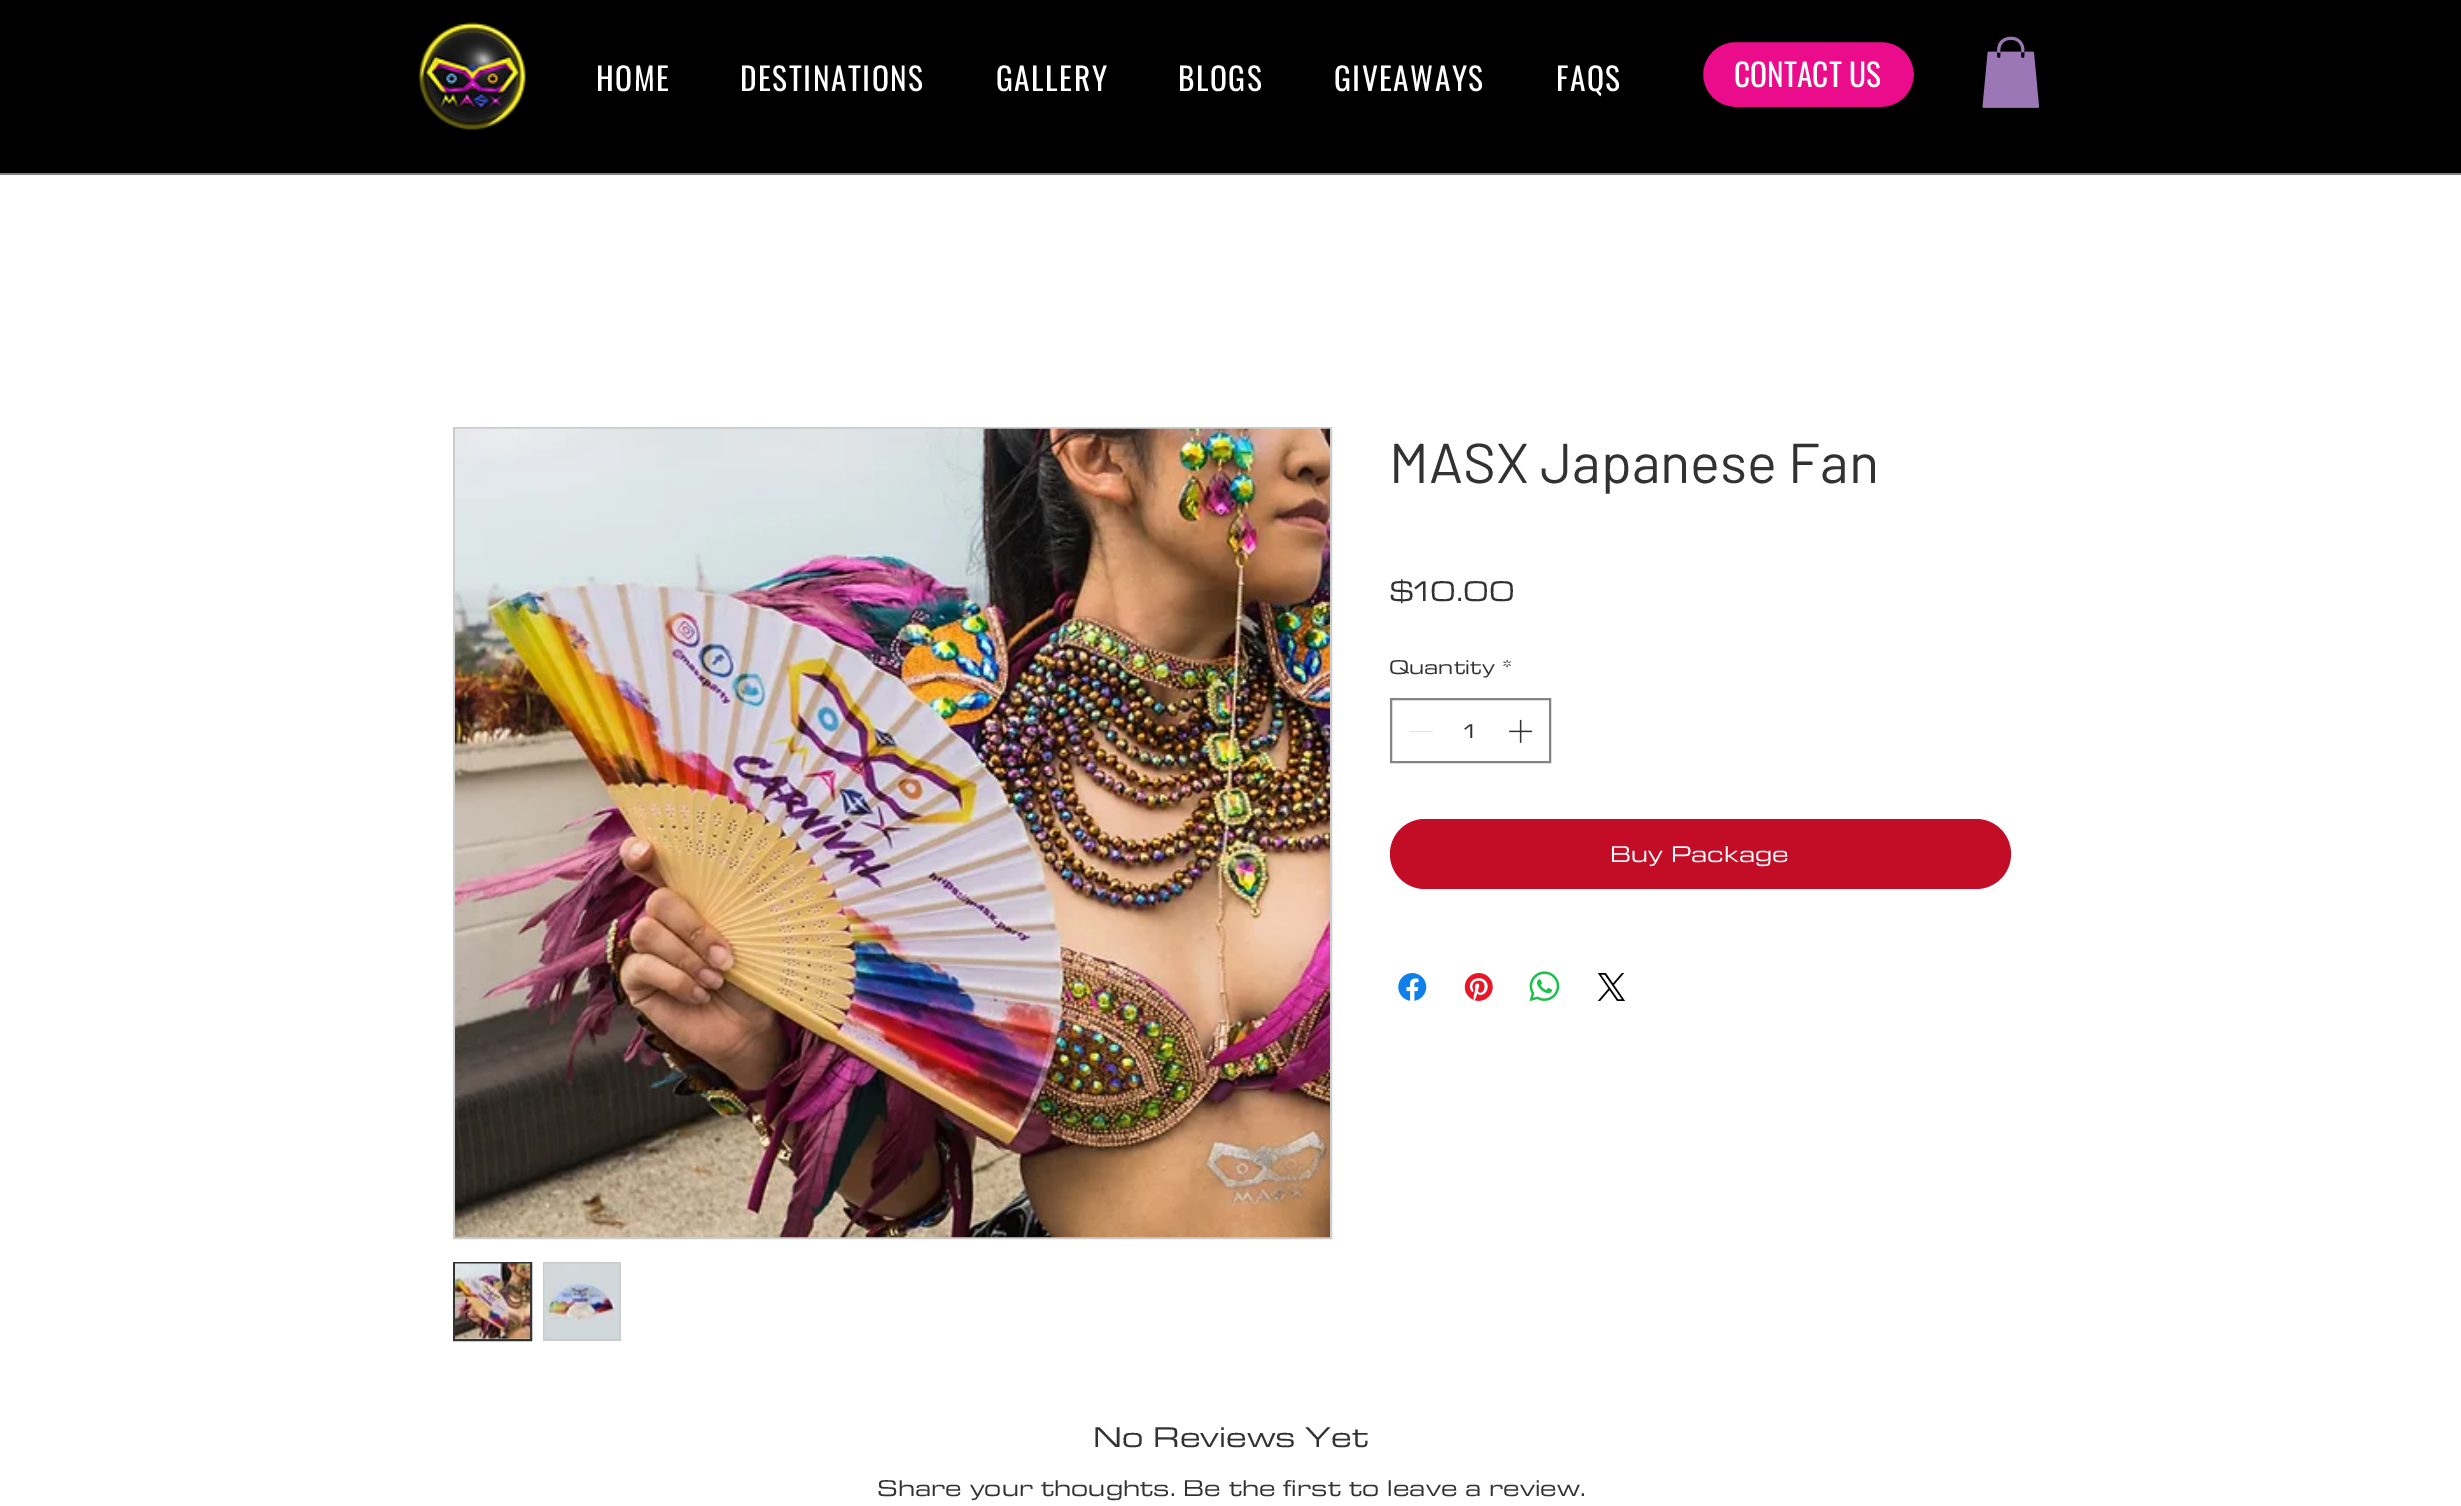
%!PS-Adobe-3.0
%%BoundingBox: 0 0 2461 1506
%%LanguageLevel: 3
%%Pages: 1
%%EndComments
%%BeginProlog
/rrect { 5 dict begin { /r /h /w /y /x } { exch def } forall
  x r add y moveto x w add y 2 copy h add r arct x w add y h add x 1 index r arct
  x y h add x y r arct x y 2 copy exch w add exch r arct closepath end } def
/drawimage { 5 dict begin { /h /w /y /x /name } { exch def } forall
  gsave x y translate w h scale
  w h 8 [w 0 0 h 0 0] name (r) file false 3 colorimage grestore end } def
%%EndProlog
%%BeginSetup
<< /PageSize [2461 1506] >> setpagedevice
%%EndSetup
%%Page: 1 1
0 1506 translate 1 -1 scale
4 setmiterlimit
0 setgray
0 0 2461 1506 rectfill
(images/1.raw) 418 22 108 108 drawimage
0.922 0.047 0.545 setrgbcolor
1702 41 213 67 33.5 rrect gsave fill grestore
0 setgray
2 setlinewidth
stroke
(images/2.raw) 1982 36 58 72 drawimage
1 setgray
0 175 2461 1331 rectfill
0.502 setgray
0 173 2461 2 rectfill
0.8 setgray
454 428 877 810 rectstroke
(images/3.raw) 455 428 875 810 drawimage
455 1338 75 1 rectfill
0.196 setgray
454 1263 77 77 rectstroke
(images/4.raw) 455 1263 76 77 drawimage
0.8 setgray
543 1262 78 79 rectfill
(images/5.raw) 544 1263 76 76 drawimage
0.518 setgray
1391 699 159 63 rectstroke
0.89 setgray
1410 731 23 1 rectfill
(images/6.raw) 1509 719 24 24 drawimage
0.765 0.047 0.149 setrgbcolor
1390 819 621 70 35 rrect fill
(images/7.raw) 1398 973 29 28 drawimage
(images/8.raw) 1464 973 29 28 drawimage
(images/9.raw) 1529 971 31 31 drawimage
(images/10.raw) 1597 973 28 28 drawimage
/Oswald-Regular [31.5 0 0 -31.5 0 0] selectfont
1 setgray
596 91 moveto 1.5 0 (HOME) ashow
740 91 moveto 1.5 0 (DESTINATIONS) ashow
996 91 moveto 1.5 0 (GALLERY) ashow
1178 91 moveto 1.5 0 (BLOGS) ashow
1334 91 moveto 1.5 0 (GIVEAWAYS) ashow
1556 91 moveto 1.5 0 (FAQS) ashow
1734 87 moveto (CONTACT US) show
/Barlow-Regular [56 0 0 -56 0 0] selectfont
0.196 setgray
1389 483 moveto (MASX Japanese Fan) show
/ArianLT-SemiBold [35 0 0 -35 0 0] selectfont
1389 601 moveto ($10.00) show
/ArianLT-SemiBold [24.5 0 0 -24.5 0 0] selectfont
1389 674 moveto (Quantity *) show
1464 738 moveto (1) show
/ArianLT-SemiBold [28 0 0 -28 0 0] selectfont
1 setgray
1610 862 moveto (Buy Package) show
/ArianLT-SemiBold [35 0 0 -35 0 0] selectfont
0.196 setgray
1093 1447 moveto (No Reviews Yet) show
/ArianLT-SemiBold [28 0 0 -28 0 0] selectfont
877 1496 moveto (Share your thoughts. Be the first to leave a review.) show
showpage
%%EOF
